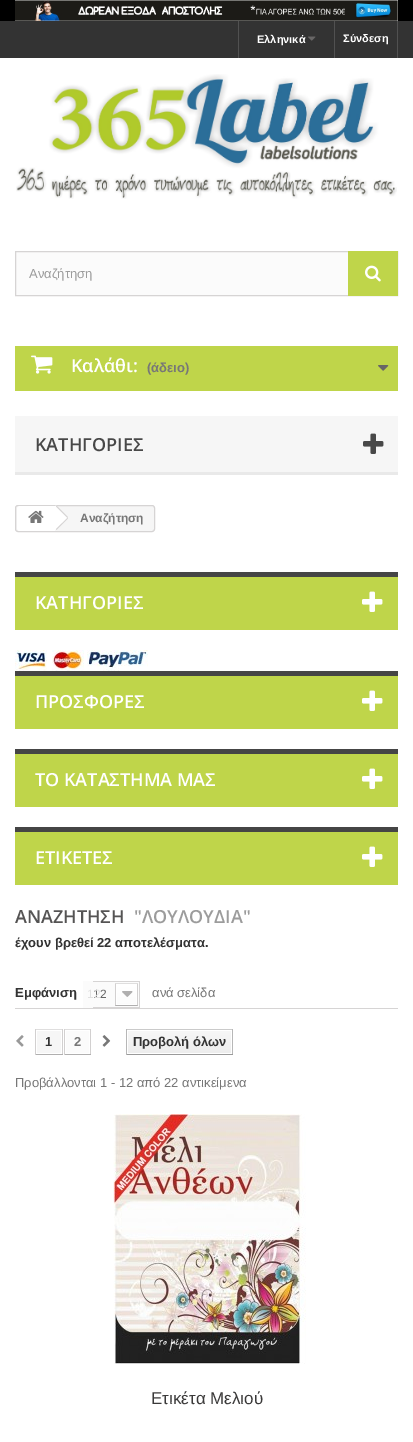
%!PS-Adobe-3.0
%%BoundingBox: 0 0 413 1442
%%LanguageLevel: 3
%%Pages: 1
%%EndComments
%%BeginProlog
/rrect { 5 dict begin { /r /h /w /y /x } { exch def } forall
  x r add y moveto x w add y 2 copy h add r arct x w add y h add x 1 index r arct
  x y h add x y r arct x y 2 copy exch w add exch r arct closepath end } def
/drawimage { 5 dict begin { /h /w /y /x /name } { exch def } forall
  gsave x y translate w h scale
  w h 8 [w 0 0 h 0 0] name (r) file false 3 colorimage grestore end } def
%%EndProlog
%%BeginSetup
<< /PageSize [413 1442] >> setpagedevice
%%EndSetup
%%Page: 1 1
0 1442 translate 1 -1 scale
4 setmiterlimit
1 setgray
0 0 413 1442 rectfill
0 setgray
0 0 413 21 rectfill
(images/1.raw) 15 0 383 21 drawimage
0.2 setgray
0 21 413 37 rectfill
0.318 setgray
238 21 1 37 rectfill
(images/2.raw) 308 36 8 5 drawimage
397 21 1 37 rectfill
334 21 1 37 rectfill
(images/3.raw) 16 74 381 125 drawimage
0.984 setgray
16 252 332 43 rectfill
0.839 0.831 0.831 setrgbcolor
15.5 251.5 382 44 rectstroke
0.749 0.835 0.29 setrgbcolor
348 251 50 45 rectfill
(images/4.raw) 365 265 16 17 drawimage
15 346 383 45 rectfill
(images/5.raw) 31 355 22 19 drawimage
(images/6.raw) 378 365 11 6 drawimage
0.965 setgray
15 416 383 56 rectfill
0.914 setgray
15 472 383 3 rectfill
(images/7.raw) 363 433 21 21 drawimage
0.965 setgray
15.5 505.5 139 26 2.5 rrect gsave fill grestore
0.839 0.831 0.831 setrgbcolor
stroke
1 setgray
newpath 20 506 moveto 55 506 lineto 55 531 lineto 20 531 lineto 18.5 531 17 529.5 17 528 curveto 17 509 lineto 17 507.5 18.5 506 20 506 curveto closepath fill
(images/8.raw) 28 510 16 13 drawimage
newpath 57.5 506.5 moveto 67.5 516.5 lineto 68 517 68 518.5 67.5 519 curveto 57.5 529 lineto 56.5 530 55.5 530 54.5 529 curveto 44.5 519 lineto 44 518.5 44 517 44.5 516.5 curveto 54.5 506.5 lineto 55.5 505.5 56.5 505.5 57.5 506.5 curveto closepath fill
0.839 0.831 0.831 setrgbcolor
newpath 56.5 505.5 moveto 68 517 lineto 67.5 518 lineto 56 506.5 lineto closepath 67.5 518 moveto 68 518.5 lineto 56.5 530 lineto 56 529 lineto closepath fill
0.749 0.835 0.29 setrgbcolor
15 577 383 53 rectfill
0.271 setgray
15 572 383 5 rectfill
(images/9.raw) 362 591 21 21 drawimage
(images/10.raw) 15 650 32 21 drawimage
(images/11.raw) 52 650 32 21 drawimage
(images/12.raw) 87 650 61 21 drawimage
0.749 0.835 0.29 setrgbcolor
15 676 383 53 rectfill
0.271 setgray
15 671 383 5 rectfill
(images/9.raw) 362 690 21 21 drawimage
0.749 0.835 0.29 setrgbcolor
15 754 383 53 rectfill
0.271 setgray
15 749 383 5 rectfill
(images/9.raw) 362 768 21 21 drawimage
0.749 0.835 0.29 setrgbcolor
15 832 383 53 rectfill
0.271 setgray
15 827 383 5 rectfill
(images/9.raw) 362 846 21 21 drawimage
0.839 0.831 0.831 setrgbcolor
15 1008 383 1 rectfill
0.984 setgray
83 981 10 27 rectfill
(images/13.raw) 93 981 47 27 drawimage
(images/14.raw) 16 1035 8 12 drawimage
0.875 0.871 0.871 setrgbcolor
35 1029 28 1 rectfill
0.824 0.816 0.816 setrgbcolor
62 1029 1 26 rectfill
0.69 0.686 0.686 setrgbcolor
35 1054 28 1 rectfill
0.824 0.816 0.816 setrgbcolor
35 1029 1 26 rectfill
0.965 setgray
37 1031 24 22 rectfill
0.875 0.871 0.871 setrgbcolor
64 1029 27 1 rectfill
0.824 0.816 0.816 setrgbcolor
90 1029 1 26 rectfill
0.69 0.686 0.686 setrgbcolor
64 1054 27 1 rectfill
0.824 0.816 0.816 setrgbcolor
64 1029 1 26 rectfill
0.984 setgray
66 1031 23 22 rectfill
(images/15.raw) 102 1035 9 12 drawimage
0.792 setgray
126 1029 107 1 rectfill
0.718 setgray
232 1029 1 26 rectfill
0.604 setgray
126 1054 107 1 rectfill
0.718 setgray
126 1029 1 26 rectfill
gsave newpath 128 1031 moveto 231 1031 lineto 231 1053 lineto 128 1053 lineto closepath clip newpath
<< /ShadingType 2 /ColorSpace /DeviceRGB /Coords [180 1031 180 1053] /Extend [true true] /Function << /FunctionType 2 /Domain [0 1] /C0 [0.969 0.969 0.969] /C1 [0.929 0.929 0.929] /N 1 >> >> shfill grestore
(images/16.raw) 113 1114 193 250 drawimage
/LiberationSans-Bold [11 0 0 -11 0 0] selectfont
1 setgray
257 43 moveto (Ελληνικά) show
343 42 moveto (Σύνδεση) show
/LiberationSans-Regular [13 0 0 -13 0 0] selectfont
0.612 setgray
29 278 moveto (Αναζήτηση) show
/OpenSans-SemiBold [18 0 0 -18 0 0] selectfont
1 setgray
71 372 moveto (Καλάθι:) show
/LiberationSans-Bold [13 0 0 -13 0 0] selectfont
0.467 setgray
147 372 moveto (\(άδειο\)) show
/OpenSans-SemiBold [18 0 0 -18 0 0] selectfont
0.282 setgray
35 451 moveto (ΚΑΤΗΓΟΡΙΕΣ) show
/LiberationSans-Bold [12 0 0 -12 0 0] selectfont
0.467 setgray
80 522 moveto (Αναζήτηση) show
/OpenSans-SemiBold [18 0 0 -18 0 0] selectfont
1 setgray
35 609 moveto (ΚΑΤΗΓΟΡΙΕΣ) show
35 708 moveto (ΠΡΟΣΦΟΡΕΣ) show
35 786 moveto (ΤΟ ΚΑΤΑΣΤΗΜΑ ΜΑΣ) show
35 864 moveto (ΕΤΙΚΕΤΕΣ) show
0.333 0.329 0.329 setrgbcolor
15 923 moveto (ΑΝΑΖΗΤΗΣΗ) show
0.612 setgray
134 923 moveto ("ΛΟΥΛΟΥΔΙΑ") show
/LiberationSans-Bold [13 0 0 -13 0 0] selectfont
0.2 setgray
15 947 moveto (έχουν βρεθεί 22 αποτελέσματα.) show
15 997 moveto (Εμφάνιση) show
/LiberationSans-Regular [12 0 0 -12 0 0] selectfont
0.4 setgray
93 998 moveto (12) show
0.878 setgray
87 998 moveto (12) show
/LiberationSans-Regular [13 0 0 -13 0 0] selectfont
0.467 setgray
152 997 moveto (ανά σελίδα) show
/LiberationSans-Bold [13 0 0 -13 0 0] selectfont
0.2 setgray
45 1046 moveto (1) show
0.467 setgray
74 1046 moveto (2) show
0.2 setgray
133 1046 moveto (Προβολή όλων) show
/LiberationSans-Regular [13 0 0 -13 0 0] selectfont
0.467 setgray
15 1087 moveto (Προβάλλονται 1 - 12 από 22 αντικείμενα) show
/LiberationSans-Regular [17 0 0 -17 0 0] selectfont
0.227 0.224 0.224 setrgbcolor
151 1404 moveto (Ετικέτα Μελιού) show
showpage
%%EOF
